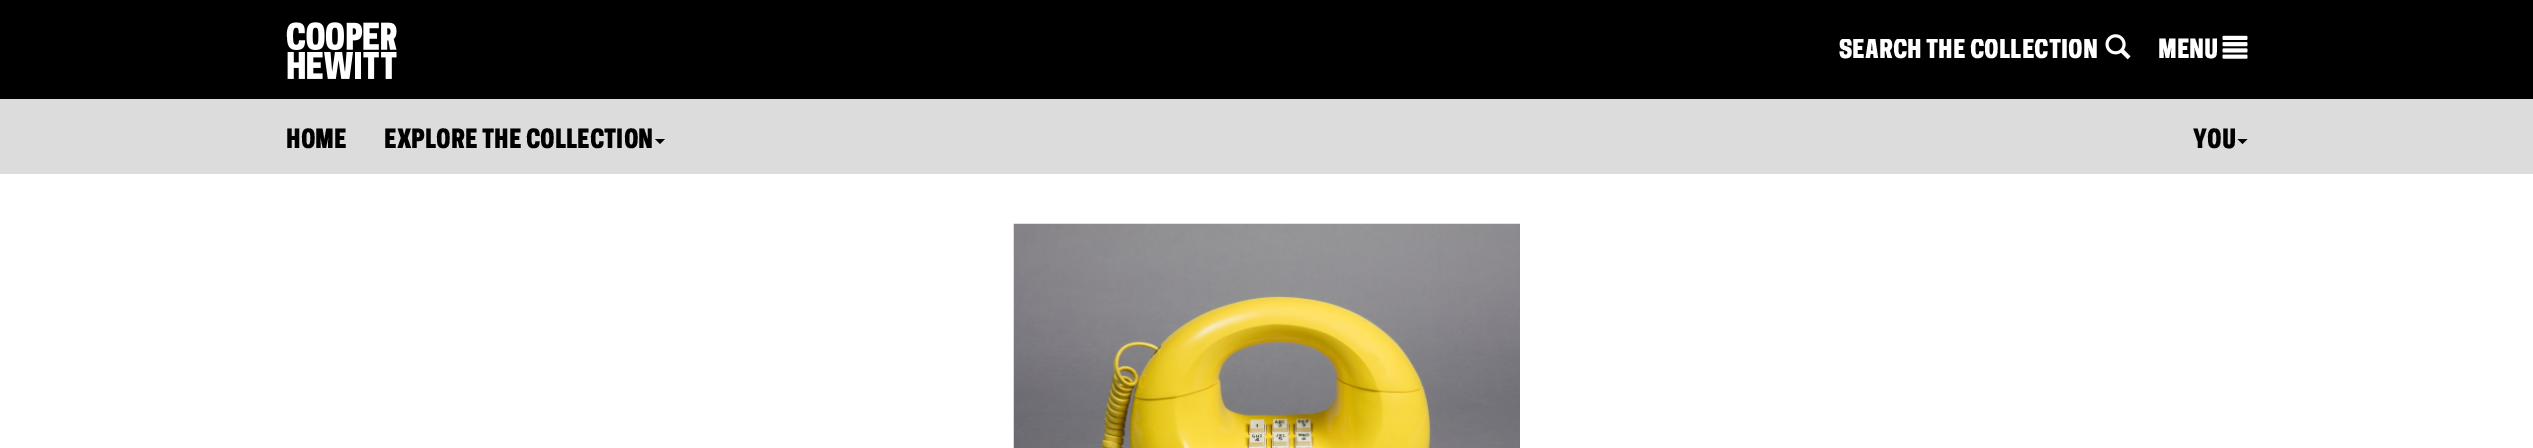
%!PS-Adobe-3.0
%%BoundingBox: 0 0 2533 448
%%LanguageLevel: 3
%%Pages: 1
%%EndComments
%%BeginProlog
/drawimage { 5 dict begin { /h /w /y /x /name } { exch def } forall
  gsave x y translate w h scale
  w h 8 [w 0 0 h 0 0] name (r) file false 3 colorimage grestore end } def
%%EndProlog
%%BeginSetup
<< /PageSize [2533 448] >> setpagedevice
%%EndSetup
%%Page: 1 1
0 448 translate 1 -1 scale
4 setmiterlimit
1 setgray
0 0 2533 448 rectfill
0 setgray
0 0 2533 99 rectfill
(images/1.raw) 286 22 111 57 drawimage
(images/2.raw) 2105 34 26 26 drawimage
(images/3.raw) 2222 35 26 24 drawimage
0.863 setgray
0 99 2533 75 rectfill
0 setgray
newpath 655 139 moveto 665 139 lineto 660 144 lineto closepath fill
newpath 2237.5 139 moveto 2247.5 139 lineto 2242.5 144 lineto closepath fill
(images/4.raw) 1013 223 507 225 drawimage
gsave
1790 39 308 25 rectclip
/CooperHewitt-SemiBold [25 0 0 -25 0 0] selectfont
1 setgray
1839 58 moveto (SEARCH THE COLLECTION) show
grestore
/CooperHewitt-SemiBold [25 0 0 -25 0 0] selectfont
1 setgray
2158 58 moveto (MENU) show
0 setgray
286 148 moveto (HOME) show
384 148 moveto (EXPLORE THE COLLECTION) show
2193 148 moveto (YOU) show
showpage
%%EOF
